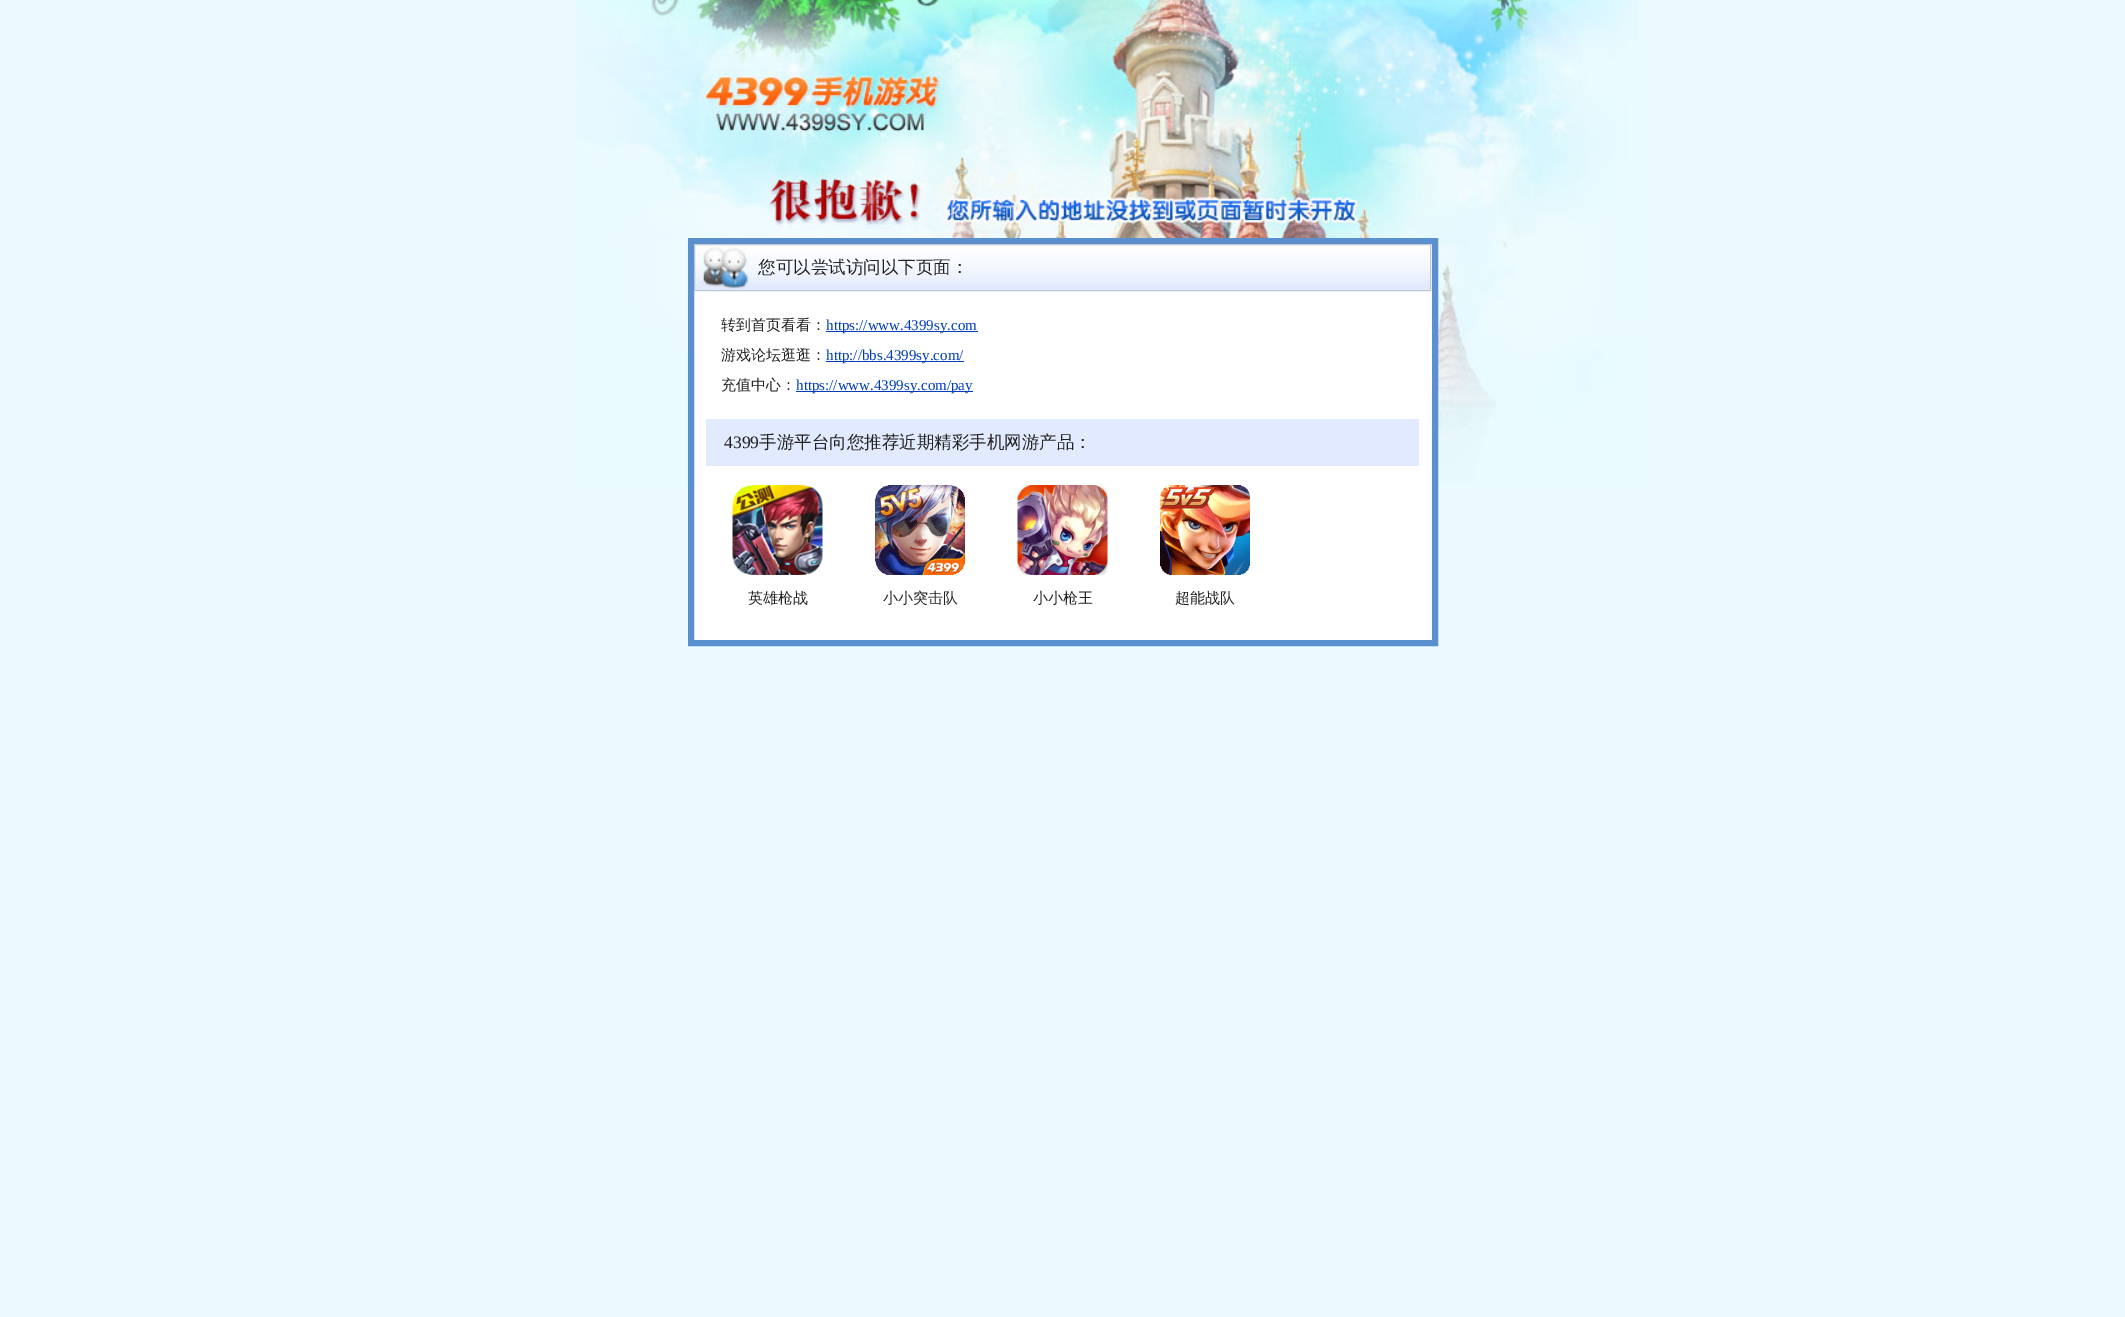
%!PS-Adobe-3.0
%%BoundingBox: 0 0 2125 1317
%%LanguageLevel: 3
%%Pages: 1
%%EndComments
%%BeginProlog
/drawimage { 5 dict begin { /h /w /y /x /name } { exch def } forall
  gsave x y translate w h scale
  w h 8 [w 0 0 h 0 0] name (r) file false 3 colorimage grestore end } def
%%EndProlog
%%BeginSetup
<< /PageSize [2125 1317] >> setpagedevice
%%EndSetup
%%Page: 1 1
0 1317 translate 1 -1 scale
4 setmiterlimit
0.918 0.98 1 setrgbcolor
0 0 2125 1317 rectfill
(images/1.raw) 577 0 1061 483 drawimage
1 setgray
newpath 691 241 moveto 1435 241 lineto 1435 643 lineto 691 643 lineto closepath gsave fill grestore
0.349 0.565 0.804 setrgbcolor
6 setlinewidth
stroke
(images/2.raw) 695 246 737 44 drawimage
0.749 0.78 0.839 setrgbcolor
1 setlinewidth
694.5 244.5 736 46 rectstroke
0 0.239 0.725 setrgbcolor
826 331 152 1 rectfill
826 361 138 1 rectfill
796 391 177 1 rectfill
0.886 0.918 1 setrgbcolor
706 419 713 47 rectfill
(images/3.raw) 732 485 91 90 drawimage
(images/4.raw) 875 485 90 90 drawimage
(images/5.raw) 1017 485 91 90 drawimage
(images/6.raw) 1160 485 90 90 drawimage
/WenQuanYiZenHei-Medium [17.5 0 0 -17.5 0 0] selectfont
0.133 setgray
758 273 moveto (您可以尝试访问以下页面：) show
/WenQuanYiZenHei-Medium [15 0 0 -15 0 0] selectfont
721 330 moveto (转到首页看看：) show
/LiberationSerif-Regular [15 0 0 -15 0 0] selectfont
0 0.239 0.725 setrgbcolor
826 330 moveto (https://www.4399sy.com) show
/WenQuanYiZenHei-Medium [15 0 0 -15 0 0] selectfont
0.133 setgray
721 360 moveto (游戏论坛逛逛：) show
/LiberationSerif-Regular [15 0 0 -15 0 0] selectfont
0 0.239 0.725 setrgbcolor
826 360 moveto (http://bbs.4399sy.com/) show
/WenQuanYiZenHei-Medium [15 0 0 -15 0 0] selectfont
0.133 setgray
721 390 moveto (充值中心：) show
/LiberationSerif-Regular [15 0 0 -15 0 0] selectfont
0 0.239 0.725 setrgbcolor
796 390 moveto (https://www.4399sy.com/pay) show
/LiberationSerif-Regular [17.5 0 0 -17.5 0 0] selectfont
0.133 setgray
724 448 moveto (4399) show
/WenQuanYiZenHei-Medium [17.5 0 0 -17.5 0 0] selectfont
759 448 moveto (手游平台向您推荐近期精彩手机网游产品：) show
/WenQuanYiZenHei-Medium [15 0 0 -15 0 0] selectfont
748 603 moveto (英雄枪战) show
883 603 moveto (小小突击队) show
1033 603 moveto (小小枪王) show
1175 603 moveto (超能战队) show
showpage
%%EOF
